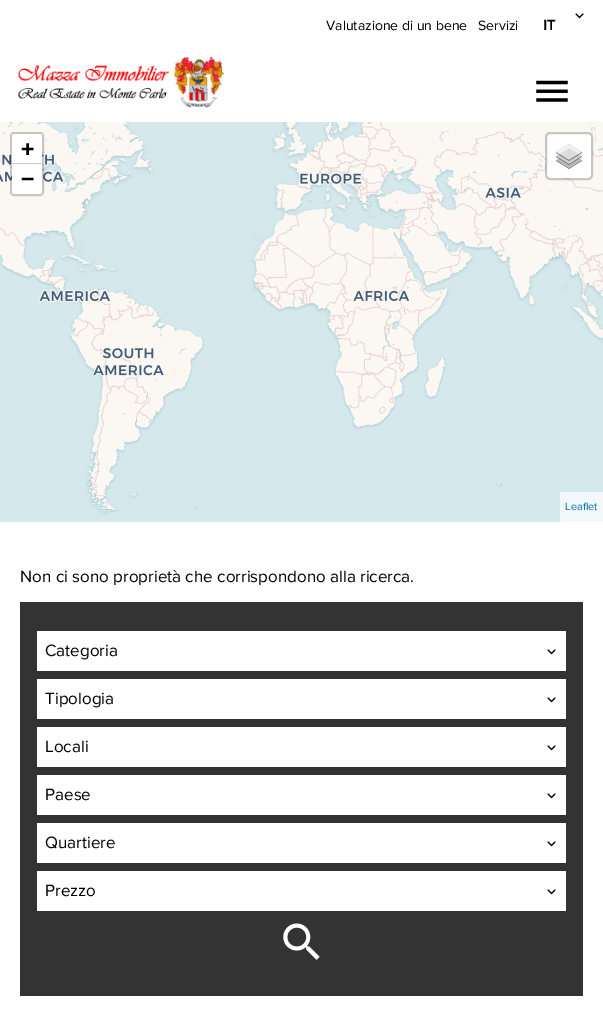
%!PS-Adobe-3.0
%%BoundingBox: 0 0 603 1012
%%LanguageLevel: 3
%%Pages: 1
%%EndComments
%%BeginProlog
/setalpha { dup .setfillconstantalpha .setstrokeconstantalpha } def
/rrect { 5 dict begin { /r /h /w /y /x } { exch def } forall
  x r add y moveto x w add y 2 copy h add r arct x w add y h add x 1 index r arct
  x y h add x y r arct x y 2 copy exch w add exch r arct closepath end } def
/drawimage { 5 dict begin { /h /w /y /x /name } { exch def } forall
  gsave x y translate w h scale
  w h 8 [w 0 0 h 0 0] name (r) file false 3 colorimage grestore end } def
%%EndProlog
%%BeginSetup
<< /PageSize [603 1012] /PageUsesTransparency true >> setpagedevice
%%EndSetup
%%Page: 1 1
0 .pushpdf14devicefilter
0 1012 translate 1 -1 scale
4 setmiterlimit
1 setgray
0 0 603 1012 rectfill
(images/1.raw) 575 13 9 6 drawimage
(images/2.raw) 536 80 32 22 drawimage
(images/3.raw) 18 56 206 52 drawimage
(images/4.raw) 0 122 46 200 drawimage
(images/5.raw) 46 122 256 200 drawimage
(images/6.raw) 302 122 256 200 drawimage
(images/7.raw) 558 122 45 200 drawimage
0.835 0.91 0.922 setrgbcolor
0 322 46 200 rectfill
(images/8.raw) 46 322 256 200 drawimage
(images/9.raw) 302 322 256 200 drawimage
(images/10.raw) 558 322 45 200 drawimage
0.2 setalpha
0 setgray
2 setlinewidth
11 133 32 62 3 rrect stroke
1 setalpha
1 setgray
newpath 14 134 moveto 40 134 lineto 41 134 42 135 42 136 curveto 42 164 lineto 12 164 lineto 12 136 lineto 12 135 13 134 14 134 curveto closepath fill
0.8 setgray
12 163 30 1 rectfill
1 setgray
newpath 12 164 moveto 42 164 lineto 42 192 lineto 42 193 41 194 40 194 curveto 14 194 lineto 13 194 12 193 12 192 curveto closepath fill
547 134 44 44 3 rrect fill
0.2 setalpha
0 setgray
546 133 46 46 4 rrect stroke
1 setalpha
(images/11.raw) 556 144 26 25 drawimage
0.949 0.973 0.976 setrgbcolor
560 492 43 30 rectfill
0.2 setgray
20 602 563 394 rectfill
1 setgray
37 631 529 40 rectfill
(images/1.raw) 547 649 9 6 drawimage
37 679 529 40 rectfill
(images/1.raw) 547 697 9 6 drawimage
37 727 529 40 rectfill
(images/1.raw) 547 745 9 6 drawimage
37 775 529 40 rectfill
(images/1.raw) 547 793 9 6 drawimage
37 823 529 40 rectfill
(images/1.raw) 547 841 9 6 drawimage
37 871 529 40 rectfill
(images/1.raw) 547 889 9 6 drawimage
(images/12.raw) 283 923 37 37 drawimage
/ProximaNova-Regular [14 0 0 -14 0 0] selectfont
0 setgray
326 30 moveto (Valutazione di un bene) show
478 30 moveto (Servizi) show
/Lato-Bold [14 0 0 -14 0 0] selectfont
543 30 moveto (IT) show
/DejaVuSansMono-Bold [22 0 0 -22 0 0] selectfont
21 156 moveto (+) show
21 186 moveto (−) show
/ProximaNova-Regular [11 0 0 -11 0 0] selectfont
0 0.471 0.659 setrgbcolor
565 510 moveto (Leaflet) show
/ProximaNova-Regular [17 0 0 -17 0 0] selectfont
0 setgray
20 582 moveto (Non ci sono proprietà che corrispondono alla ricerca.) show
45 656 moveto (Categoria) show
45 704 moveto (Tipologia) show
45 752 moveto (Locali) show
45 800 moveto (Paese) show
45 848 moveto (Quartiere) show
45 896 moveto (Prezzo) show
.poppdf14devicefilter showpage
%%EOF
